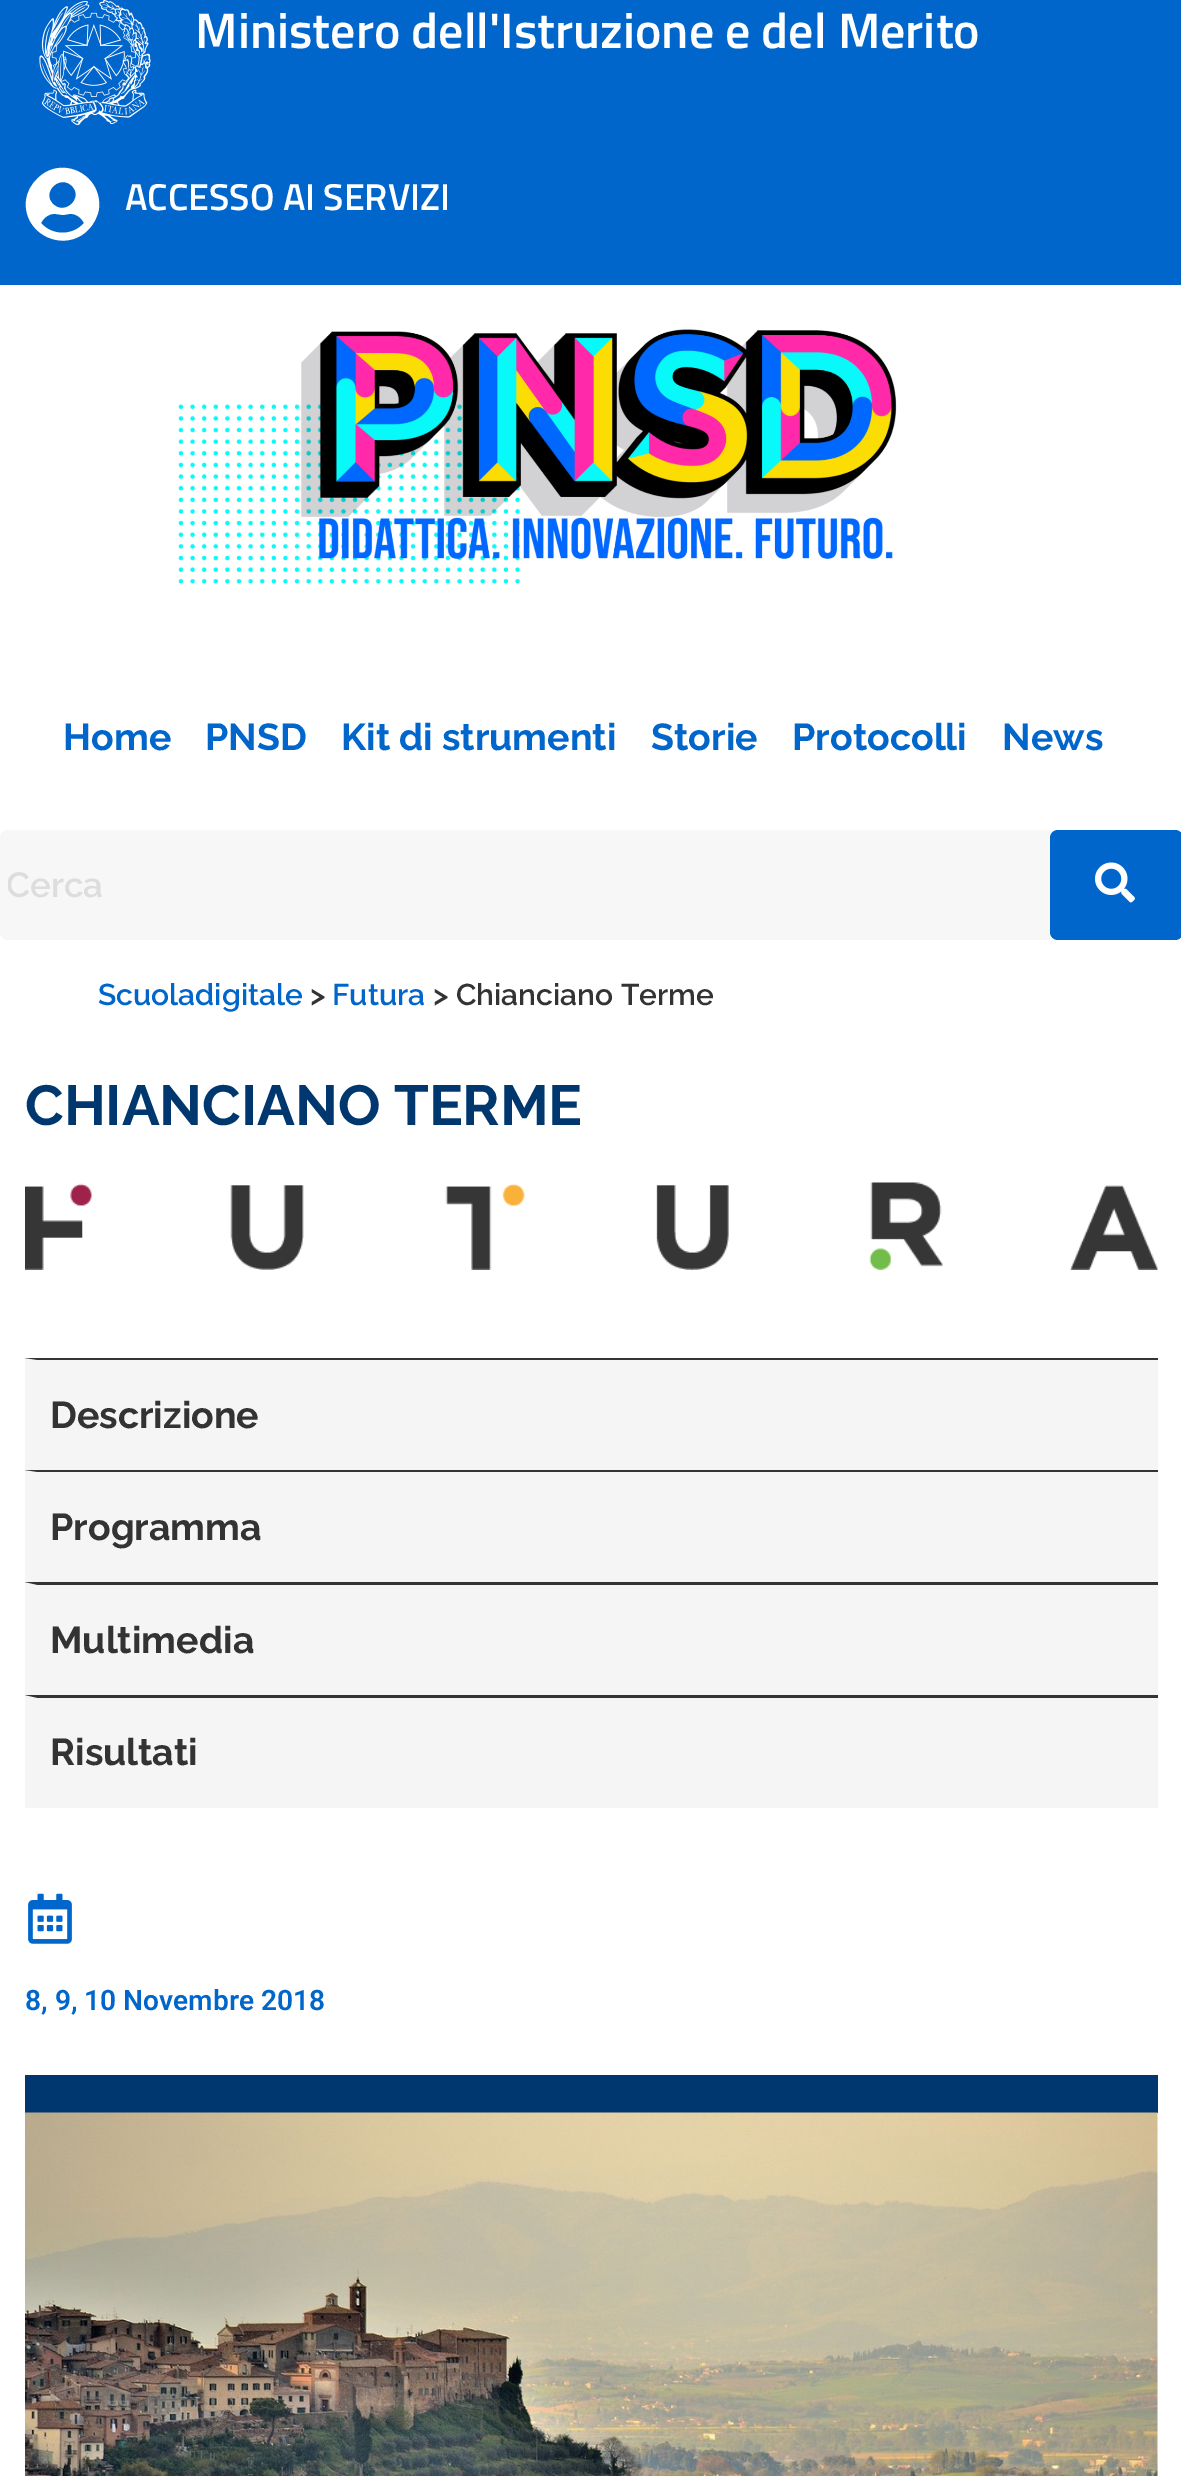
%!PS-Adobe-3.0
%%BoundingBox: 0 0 1181 2476
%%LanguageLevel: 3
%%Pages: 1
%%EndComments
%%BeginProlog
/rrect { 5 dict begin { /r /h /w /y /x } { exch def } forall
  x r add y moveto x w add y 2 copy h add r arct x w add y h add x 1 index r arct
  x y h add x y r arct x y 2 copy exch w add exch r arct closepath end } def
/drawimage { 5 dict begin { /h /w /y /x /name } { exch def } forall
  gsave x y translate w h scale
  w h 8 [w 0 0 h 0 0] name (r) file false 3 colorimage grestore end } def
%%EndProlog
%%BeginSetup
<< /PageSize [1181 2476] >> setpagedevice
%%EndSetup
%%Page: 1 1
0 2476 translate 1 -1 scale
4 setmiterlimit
1 setgray
0 0 1181 2476 rectfill
0 0.4 0.8 setrgbcolor
0 0 1181 285 rectfill
(images/1.raw) 39 0 112 125 drawimage
1 setgray
newpath 37 179 moveto 61 154 102 174 99 208 curveto 98 216 94 224 88 230 curveto 64 254 23 234 26 201 curveto 27 192 31 185 37 179 curveto closepath 72 186 moveto 60 174 41 192 53 204 curveto 65 216 84 198 72 186 curveto closepath 41 223 moveto 52 236 73 236 84 223 curveto 81 217 75 213 69 214 curveto 63 215 lineto 56 214 lineto 50 213 44 217 41 223 curveto closepath fill
(images/2.raw) 178 329 719 255 drawimage
0.969 setgray
newpath 8 830 moveto 1050 830 lineto 1050 940 lineto 8 940 lineto 3.5 940 0 936.5 0 932 curveto 0 838 lineto 0 833.5 3.5 830 8 830 curveto closepath fill
0 0.4 0.8 setrgbcolor
1050 830 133 110 8 rrect fill
(images/3.raw) 1095 862 40 41 drawimage
(images/4.raw) 25 1182 1133 88 drawimage
0.965 0.961 0.961 setrgbcolor
25 1358 1133 450 rectfill
0.204 setgray
newpath 25 1358 moveto 1158 1358 lineto 1158 1360 lineto 38 1360 lineto closepath fill
newpath 25 1470 moveto 1158 1470 lineto 1158 1472 lineto 38 1472 lineto closepath fill
newpath 25 1582 moveto 1158 1582 lineto 1158 1585 lineto 38 1585 lineto closepath fill
newpath 25 1695 moveto 1158 1695 lineto 1158 1698 lineto 38 1698 lineto closepath fill
(images/5.raw) 28 1893 44 51 drawimage
0 0.216 0.431 setrgbcolor
25 2075 1133 38 rectfill
(images/6.raw) 25 2112 1133 364 drawimage
/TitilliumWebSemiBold-SemiBold [50 0 0 -50 0 0] selectfont
1 setgray
195 48 moveto (Ministero dell'Istruzione e del Merito) show
/TitilliumWebSemiBold-SemiBold [37.5 0 0 -37.5 0 0] selectfont
125 210 moveto (ACCESSO AI SERVIZI) show
/Raleway-Bold [37.5 0 0 -37.5 0 0] selectfont
0 0.4 0.8 setrgbcolor
63 750 moveto (Home) show
205 750 moveto (PNSD) show
341 750 moveto (Kit di strumenti) show
651 750 moveto (Storie) show
792 750 moveto (Protocolli) show
1002 750 moveto (News) show
gsave
8 865 1035 40 rectclip
/Raleway-SemiBold [35 0 0 -35 0 0] selectfont
0.867 setgray
6 897 moveto (Cerca) show
grestore
/Raleway-SemiBold [30 0 0 -30 0 0] selectfont
98 1005 moveto (Scuoladigitale) show
0.2 setgray
310 1005 moveto (>) show
0 0.4 0.8 setrgbcolor
332 1005 moveto (Futura) show
0.2 setgray
433 1005 moveto (> Chianciano Terme) show
/Raleway-Bold [56.25 0 0 -56.25 0 0] selectfont
0 0.216 0.431 setrgbcolor
25 1125 moveto (CHIANCIANO TERME) show
/Raleway-Bold [37.5 0 0 -37.5 0 0] selectfont
0.2 setgray
50 1428 moveto (Descrizione) show
50 1540 moveto (Programma) show
50 1653 moveto (Multimedia) show
50 1765 moveto (Risultati) show
/Roboto-SemiBold [28.1 0 0 -28.1 0 0] selectfont
0 0.4 0.8 setrgbcolor
25 2010 moveto (8, 9, 10 Novembre 2018) show
showpage
%%EOF
